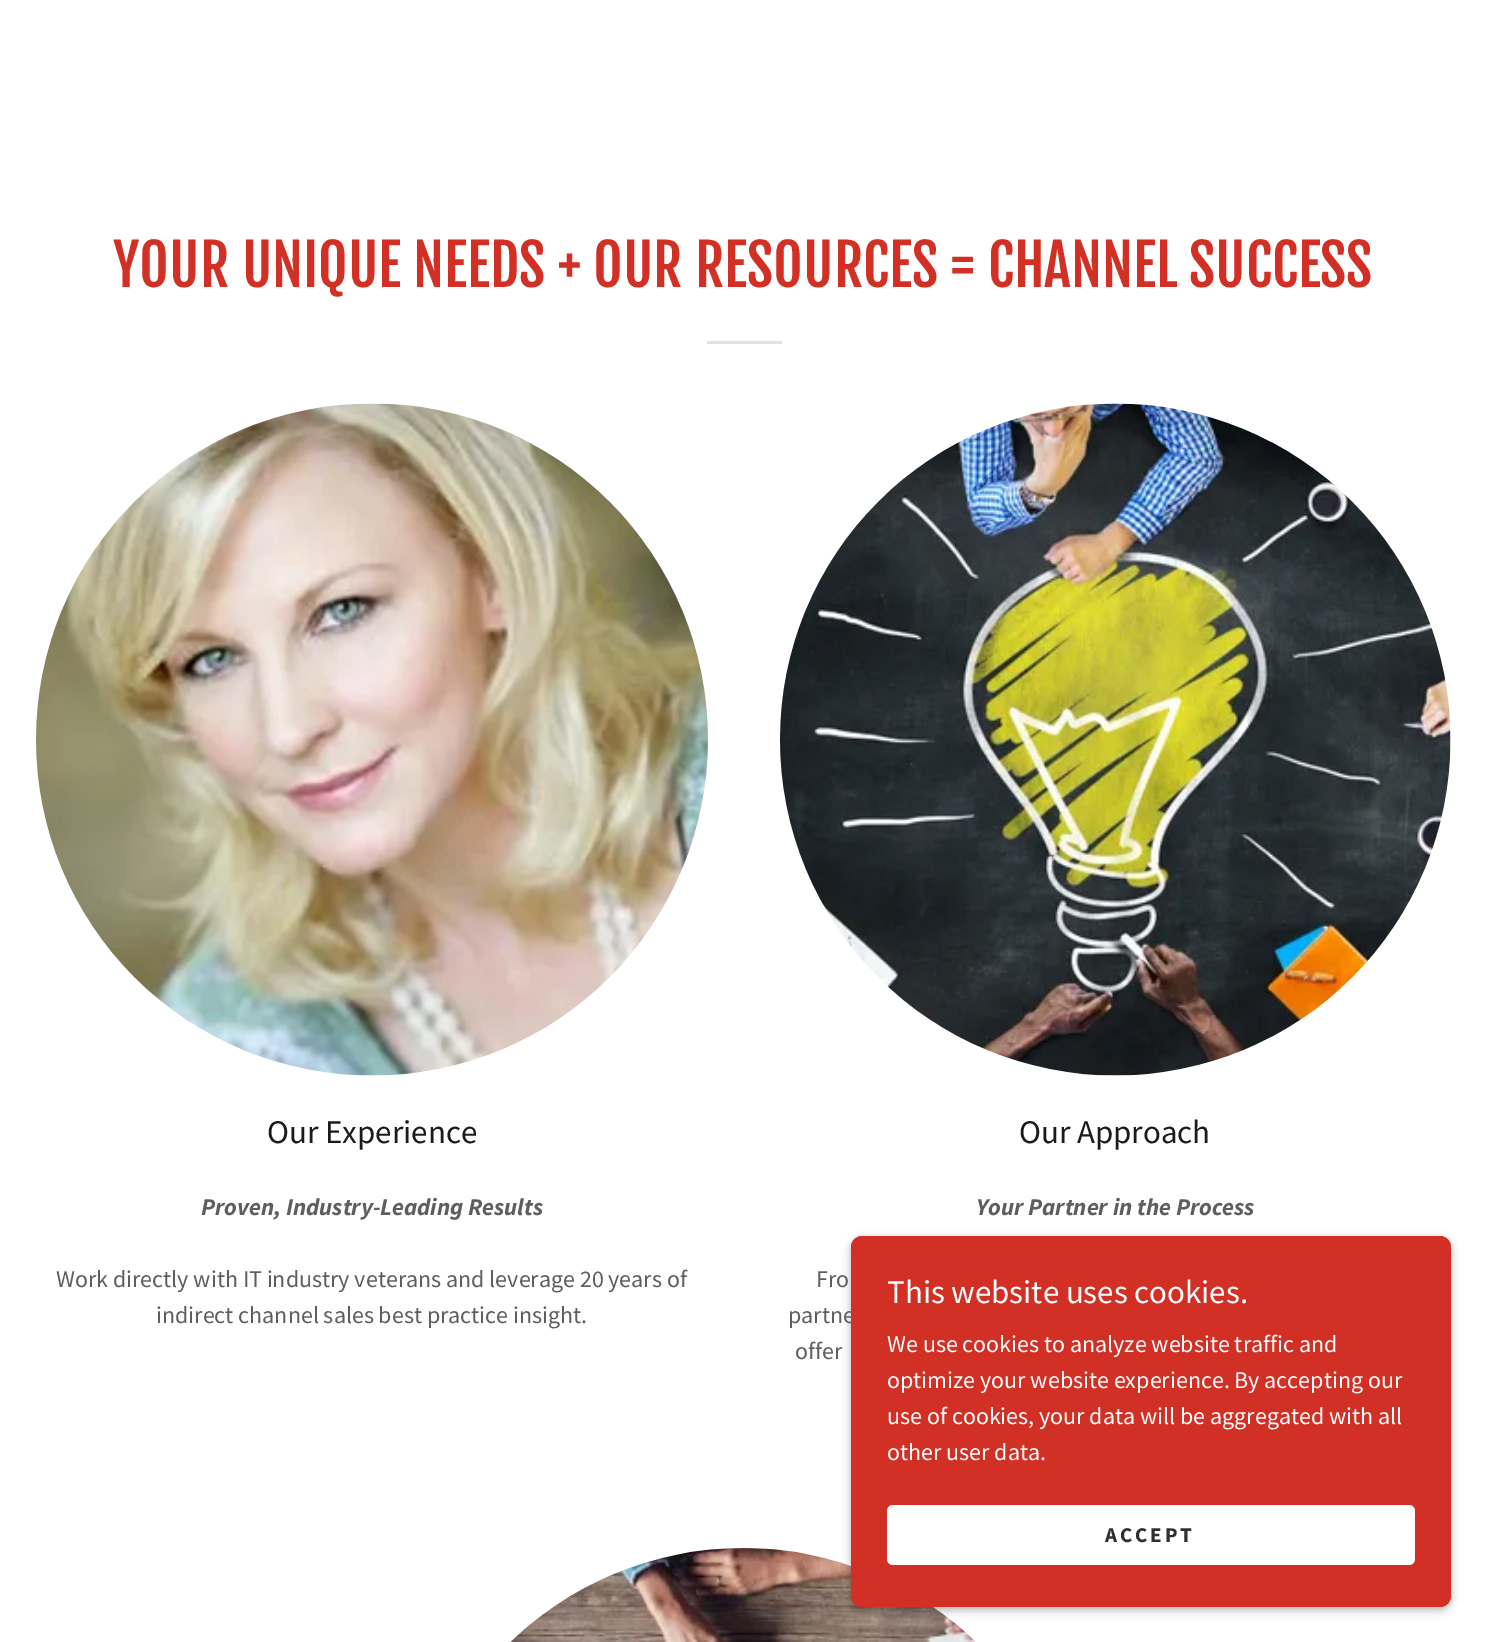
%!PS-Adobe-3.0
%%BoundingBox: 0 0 1486 1642
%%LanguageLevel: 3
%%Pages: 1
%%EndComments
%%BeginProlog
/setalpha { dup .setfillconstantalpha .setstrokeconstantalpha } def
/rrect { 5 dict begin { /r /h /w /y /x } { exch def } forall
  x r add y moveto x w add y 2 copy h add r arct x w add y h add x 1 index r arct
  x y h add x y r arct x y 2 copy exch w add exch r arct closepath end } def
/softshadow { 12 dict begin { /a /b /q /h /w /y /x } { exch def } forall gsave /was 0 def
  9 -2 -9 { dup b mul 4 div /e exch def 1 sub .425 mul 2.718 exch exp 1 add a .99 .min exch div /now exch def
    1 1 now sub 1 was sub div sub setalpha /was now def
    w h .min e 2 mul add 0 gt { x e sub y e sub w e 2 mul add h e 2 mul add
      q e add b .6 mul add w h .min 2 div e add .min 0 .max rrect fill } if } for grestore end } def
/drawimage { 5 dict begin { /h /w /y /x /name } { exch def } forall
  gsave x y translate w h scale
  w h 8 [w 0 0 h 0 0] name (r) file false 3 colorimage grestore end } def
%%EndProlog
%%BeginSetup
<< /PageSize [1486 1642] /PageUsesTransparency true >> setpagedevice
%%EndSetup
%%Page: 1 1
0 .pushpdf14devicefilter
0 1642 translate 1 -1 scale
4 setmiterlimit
1 setgray
0 0 1486 1642 rectfill
0.886 setgray
707 341 75 3 rectfill
(images/1.raw) 36 403 672 673 drawimage
(images/2.raw) 780 403 671 673 drawimage
(images/3.raw) 510 1548 466 94 drawimage
0 setgray
851 1239 600 371 11 4.5 0.3 softshadow
/FjallaOne-Regular [57 0 0 -57 0 0] selectfont
0.824 0.184 0.145 setrgbcolor
113 287 moveto (YOUR UNIQUE NEEDS + OUR RESOURCES = CHANNEL SUCCESS) show
/SourceSansPro-Regular [33 0 0 -33 0 0] selectfont
0.106 setgray
267 1143 moveto (Our Experience) show
/SourceSansPro-BoldItalic [24 0 0 -24 0 0] selectfont
0.369 setgray
201 1215 moveto (Proven, Industry-Leading Results) show
/SourceSansPro-Regular [24 0 0 -24 0 0] selectfont
56 1287 moveto (Work directly with IT industry veterans and leverage 20 years of) show
156 1323 moveto (indirect channel sales best practice insight.) show
/SourceSansPro-Regular [33 0 0 -33 0 0] selectfont
0.106 setgray
1019 1143 moveto (Our Approach) show
/SourceSansPro-BoldItalic [24 0 0 -24 0 0] selectfont
0.369 setgray
976 1215 moveto (Your Partner in the Process) show
/SourceSansPro-Regular [24 0 0 -24 0 0] selectfont
816 1287 moveto (Fro) show
788 1323 moveto (partne) show
795 1359 moveto (offer) show
0.824 0.184 0.145 setrgbcolor
851 1236 600 371 11 rrect fill
/SourceSansPro-Regular [33 0 0 -33 0 0] selectfont
1 setgray
887 1303 moveto (This website uses cookies.) show
/SourceSansPro-Regular [24 0 0 -24 0 0] selectfont
887 1352 moveto (We use cookies to analyze website traffic and) show
887 1388 moveto (optimize your website experience. By accepting our) show
887 1424 moveto (use of cookies, your data will be aggregated with all) show
887 1460 moveto (other user data.) show
887 1505 528 60 6 rrect fill
/SourceSansPro-Bold [21 0 0 -21 0 0] selectfont
0.188 setgray
1105 1542 moveto 3 0 (ACCEPT) ashow
.poppdf14devicefilter showpage
%%EOF
